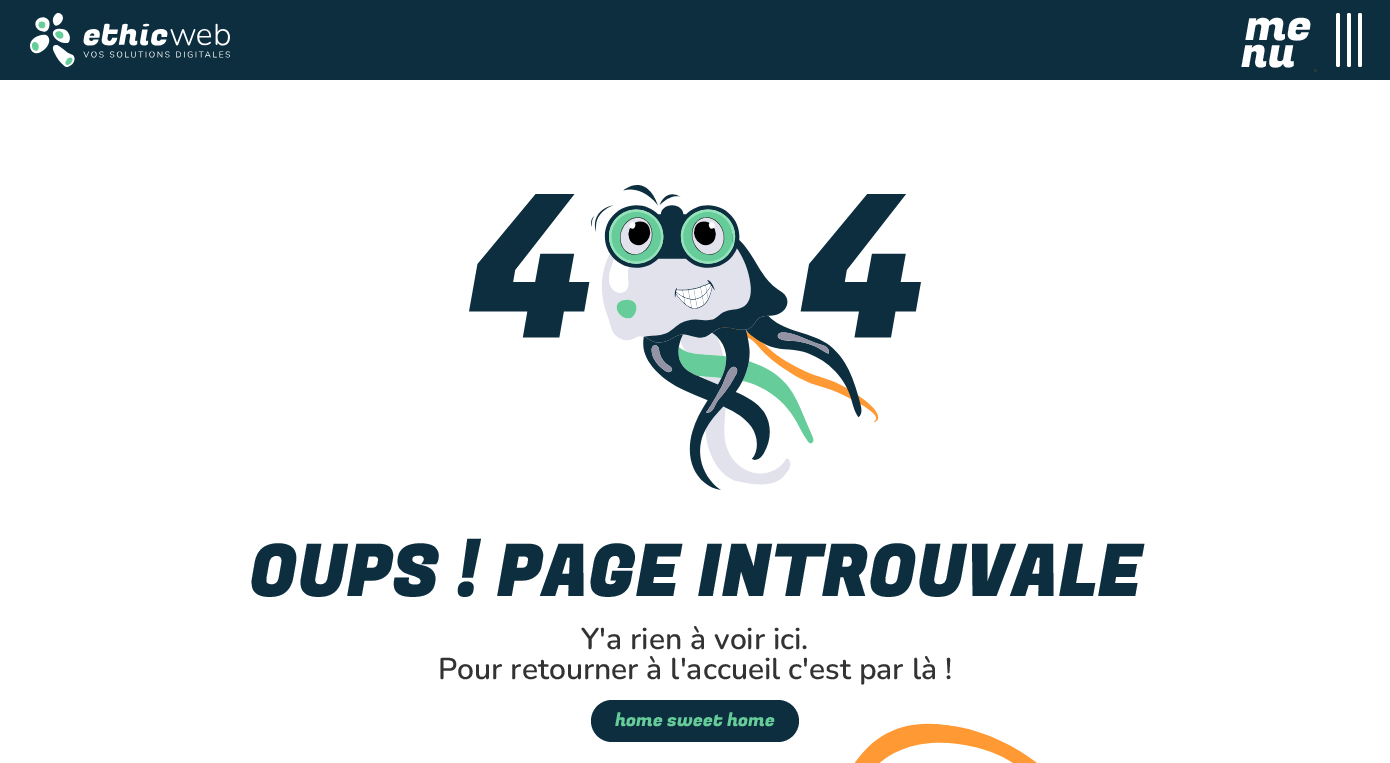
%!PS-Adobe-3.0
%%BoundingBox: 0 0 1390 763
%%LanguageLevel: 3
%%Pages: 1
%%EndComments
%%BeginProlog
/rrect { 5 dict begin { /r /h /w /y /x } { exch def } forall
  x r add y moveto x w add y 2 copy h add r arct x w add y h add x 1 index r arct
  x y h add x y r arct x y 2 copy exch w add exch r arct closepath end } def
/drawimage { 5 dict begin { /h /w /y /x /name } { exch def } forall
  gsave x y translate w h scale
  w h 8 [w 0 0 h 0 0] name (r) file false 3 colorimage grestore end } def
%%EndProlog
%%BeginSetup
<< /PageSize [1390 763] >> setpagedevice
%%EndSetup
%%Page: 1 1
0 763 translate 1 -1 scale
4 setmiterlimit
1 setgray
0 0 1390 763 rectfill
0.047 0.18 0.247 setrgbcolor
0 0 1390 80 rectfill
(images/1.raw) 30 13 200 54 drawimage
0.133 0.22 0.239 setrgbcolor
1314 69 3 3 rectfill
1 setgray
1336 13 4 54 2 rrect fill
1347 13 4 54 2 rrect fill
1358 13 4 54 2 rrect fill
(images/2.raw) 469 185 452 305 drawimage
0.047 0.18 0.247 setrgbcolor
591 700 208 42 21 rrect fill
(images/3.raw) 854 723 183 40 drawimage
/FugazOne-Regular [45 0 0 -45 0 0] selectfont
1 setgray
1245 40 moveto (me) show
1241 67 moveto (nu) show
/FugazOne-Bold [70 0 0 -70 0 0] selectfont
0.047 0.18 0.247 setrgbcolor
249 596 moveto 1.2 0 (OUPS ! PAGE INTROUVALE) ashow
/Nunito-SemiBold [30 0 0 -30 0 0] selectfont
0.2 setgray
581 649 moveto (Y'a rien à voir ici.) show
438 679 moveto (Pour retourner à l'accueil c'est par là !) show
/FugazOne-Regular [18 0 0 -18 0 0] selectfont
0.4 0.8 0.6 setrgbcolor
615 726 moveto (home sweet home) show
showpage
%%EOF
